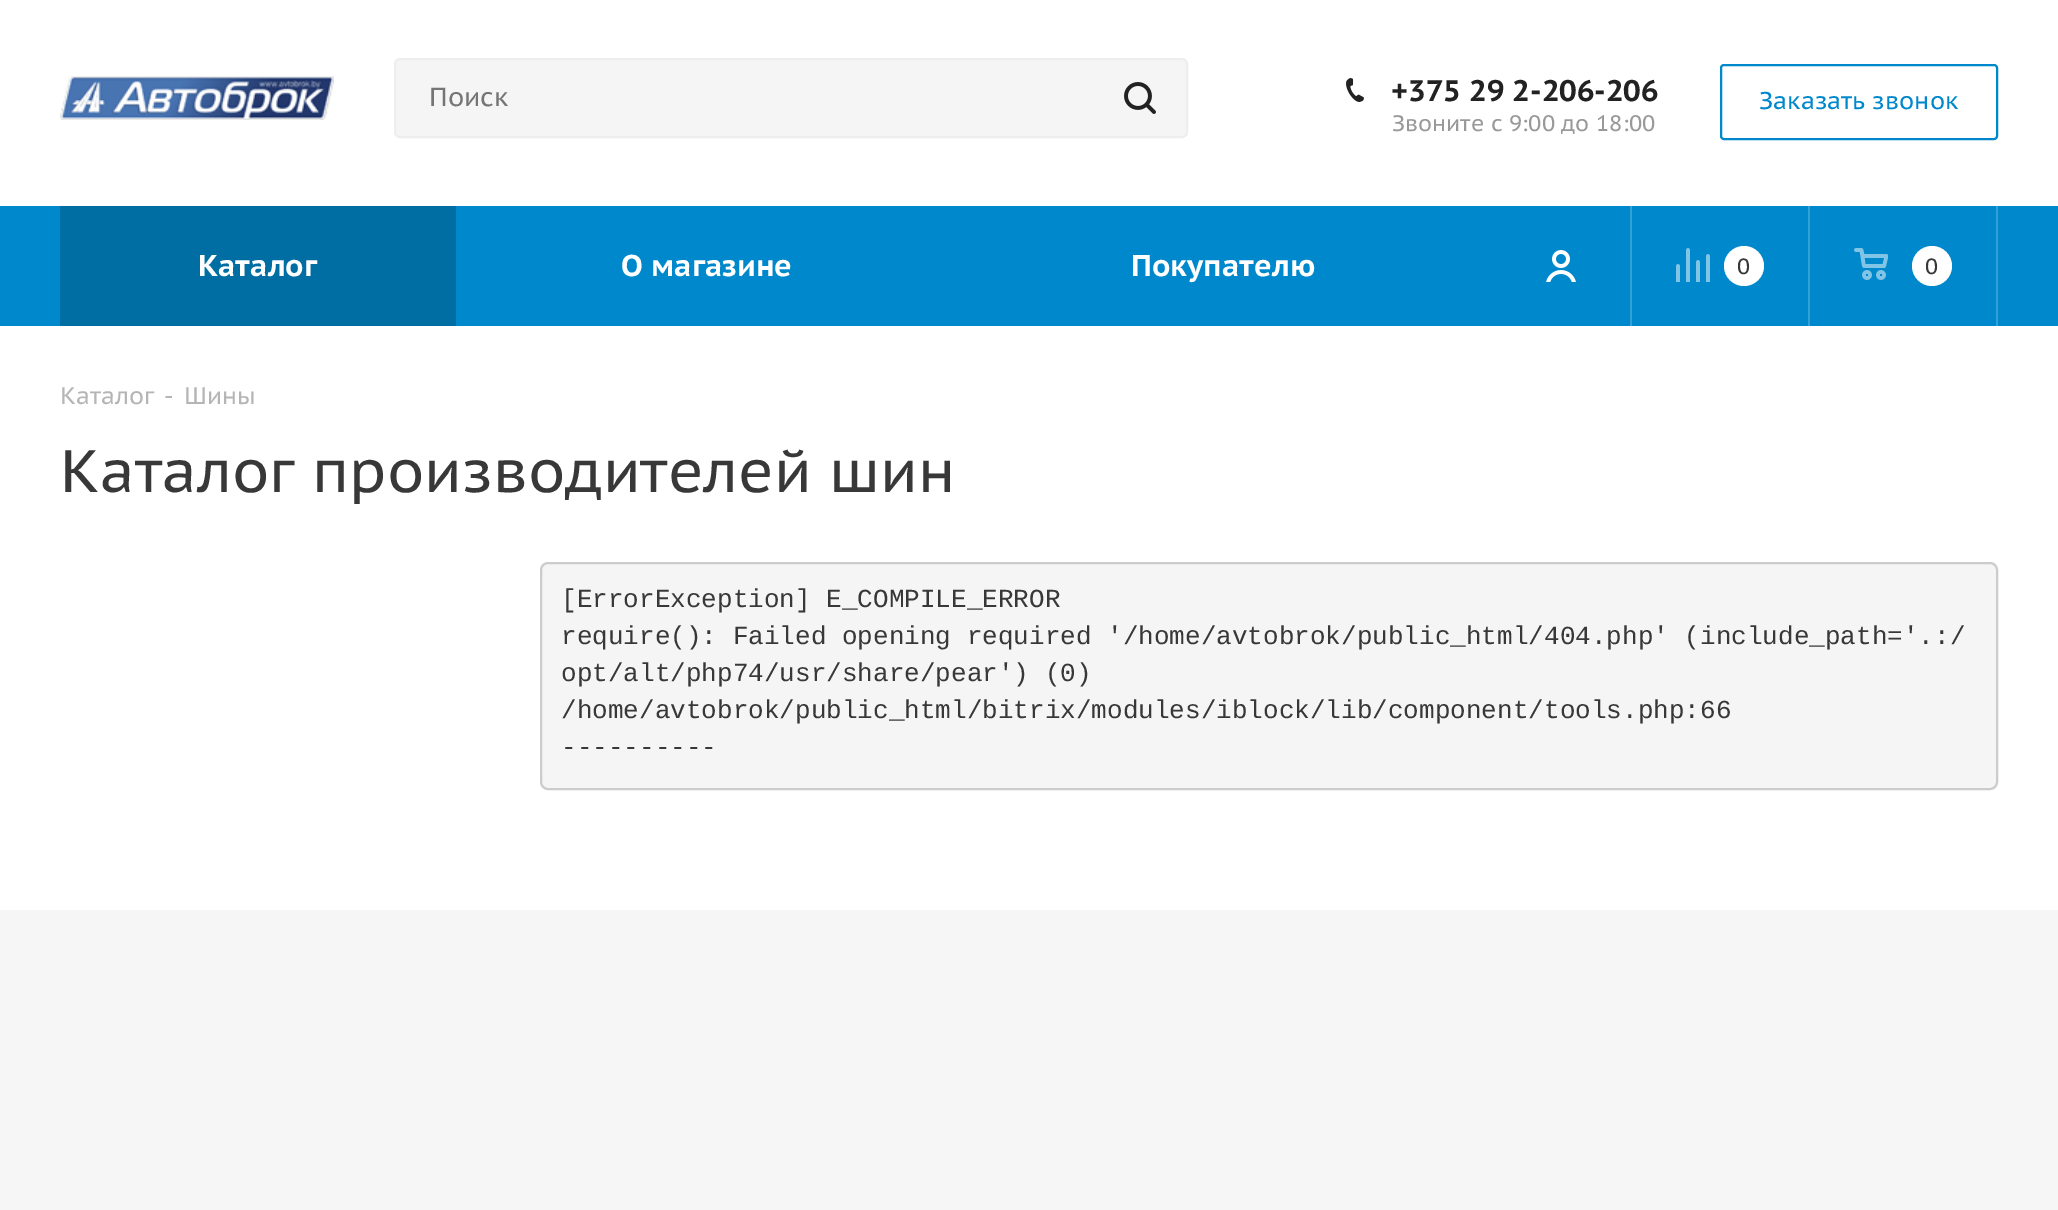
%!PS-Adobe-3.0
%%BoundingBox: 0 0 2058 1210
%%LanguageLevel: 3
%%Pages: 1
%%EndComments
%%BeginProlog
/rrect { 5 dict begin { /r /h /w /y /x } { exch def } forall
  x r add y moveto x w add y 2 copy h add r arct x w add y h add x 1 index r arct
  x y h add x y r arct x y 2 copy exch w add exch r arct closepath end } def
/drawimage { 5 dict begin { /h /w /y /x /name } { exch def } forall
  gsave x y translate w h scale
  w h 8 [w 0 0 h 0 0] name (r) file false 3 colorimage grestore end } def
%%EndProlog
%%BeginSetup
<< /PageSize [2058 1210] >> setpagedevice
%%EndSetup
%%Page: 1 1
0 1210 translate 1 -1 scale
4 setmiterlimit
0.965 0.965 0.969 setrgbcolor
0 0 2058 1210 rectfill
1 setgray
0 0 2058 206 rectfill
(images/1.raw) 60 76 274 44 drawimage
0.961 setgray
395 59 792 78 5 rrect gsave fill grestore
0.933 setgray
2 setlinewidth
stroke
(images/2.raw) 1124 82 32 32 drawimage
(images/3.raw) 1346 78 18 24 drawimage
0 0.533 0.8 setrgbcolor
1721 65 276 74 3 rrect stroke
0 206 2058 120 rectfill
0 0.427 0.639 setrgbcolor
60 206 396 120 rectfill
0.2 0.627 0.839 setrgbcolor
1630 206 2 120 rectfill
(images/4.raw) 1546 250 30 32 drawimage
1808 206 2 120 rectfill
(images/5.raw) 1676 248 34 34 drawimage
1 setgray
newpath 1744 266 20 0 360 arc closepath fill
0.2 0.627 0.839 setrgbcolor
1996 206 2 120 rectfill
(images/6.raw) 1854 248 34 32 drawimage
1 setgray
newpath 1932 266 20 0 360 arc closepath fill
0 326 2058 584 rectfill
0.961 setgray
541 563 1456 226 7 rrect gsave fill grestore
0.8 setgray
stroke
/PTSansCaption-Regular [26 0 0 -26 0 0] selectfont
0.459 setgray
429 106 moveto (Поиск) show
/PTSansCaption-Bold [29.75 0 0 -29.75 0 0] selectfont
0.133 setgray
1391 101 moveto (+375 29 2-206-206) show
/PTSansCaption-Regular [22.4 0 0 -22.4 0 0] selectfont
0.6 setgray
1392 131 moveto (Звоните с 9:00 до 18:00) show
/PTSansCaption-Regular [24.25 0 0 -24.25 0 0] selectfont
0 0.533 0.8 setrgbcolor
1759 109 moveto (Заказать звонок) show
/PTSansCaption-Bold [30 0 0 -30 0 0] selectfont
1 setgray
198 276 moveto (Каталог) show
621 276 moveto (О магазине) show
1131 276 moveto (Покупателю) show
/PTSansCaption-Regular [22 0 0 -22 0 0] selectfont
0.22 setgray
1737 274 moveto (0) show
1925 274 moveto (0) show
/PTSansCaption-Regular [24 0 0 -24 0 0] selectfont
0.714 0.71 0.71 setrgbcolor
60 404 moveto (Каталог) show
164 404 moveto (-) show
184 404 moveto (Шины) show
/PTSansCaption-Regular [59.75 0 0 -59.75 0 0] selectfont
0.22 setgray
60 492 moveto (Каталог производителей шин) show
/LiberationMono-Regular [26 0 0 -26 0 0] selectfont
561 607 moveto ([ErrorException] E_COMPILE_ERROR) show
561 644 moveto (require\(\): Failed opening required '/home/avtobrok/public_html/404.php' \(include_path='.:/) show
561 681 moveto (opt/alt/php74/usr/share/pear'\) \(0\)) show
561 718 moveto (/home/avtobrok/public_html/bitrix/modules/iblock/lib/component/tools.php:66) show
561 755 moveto (----------) show
showpage
%%EOF
